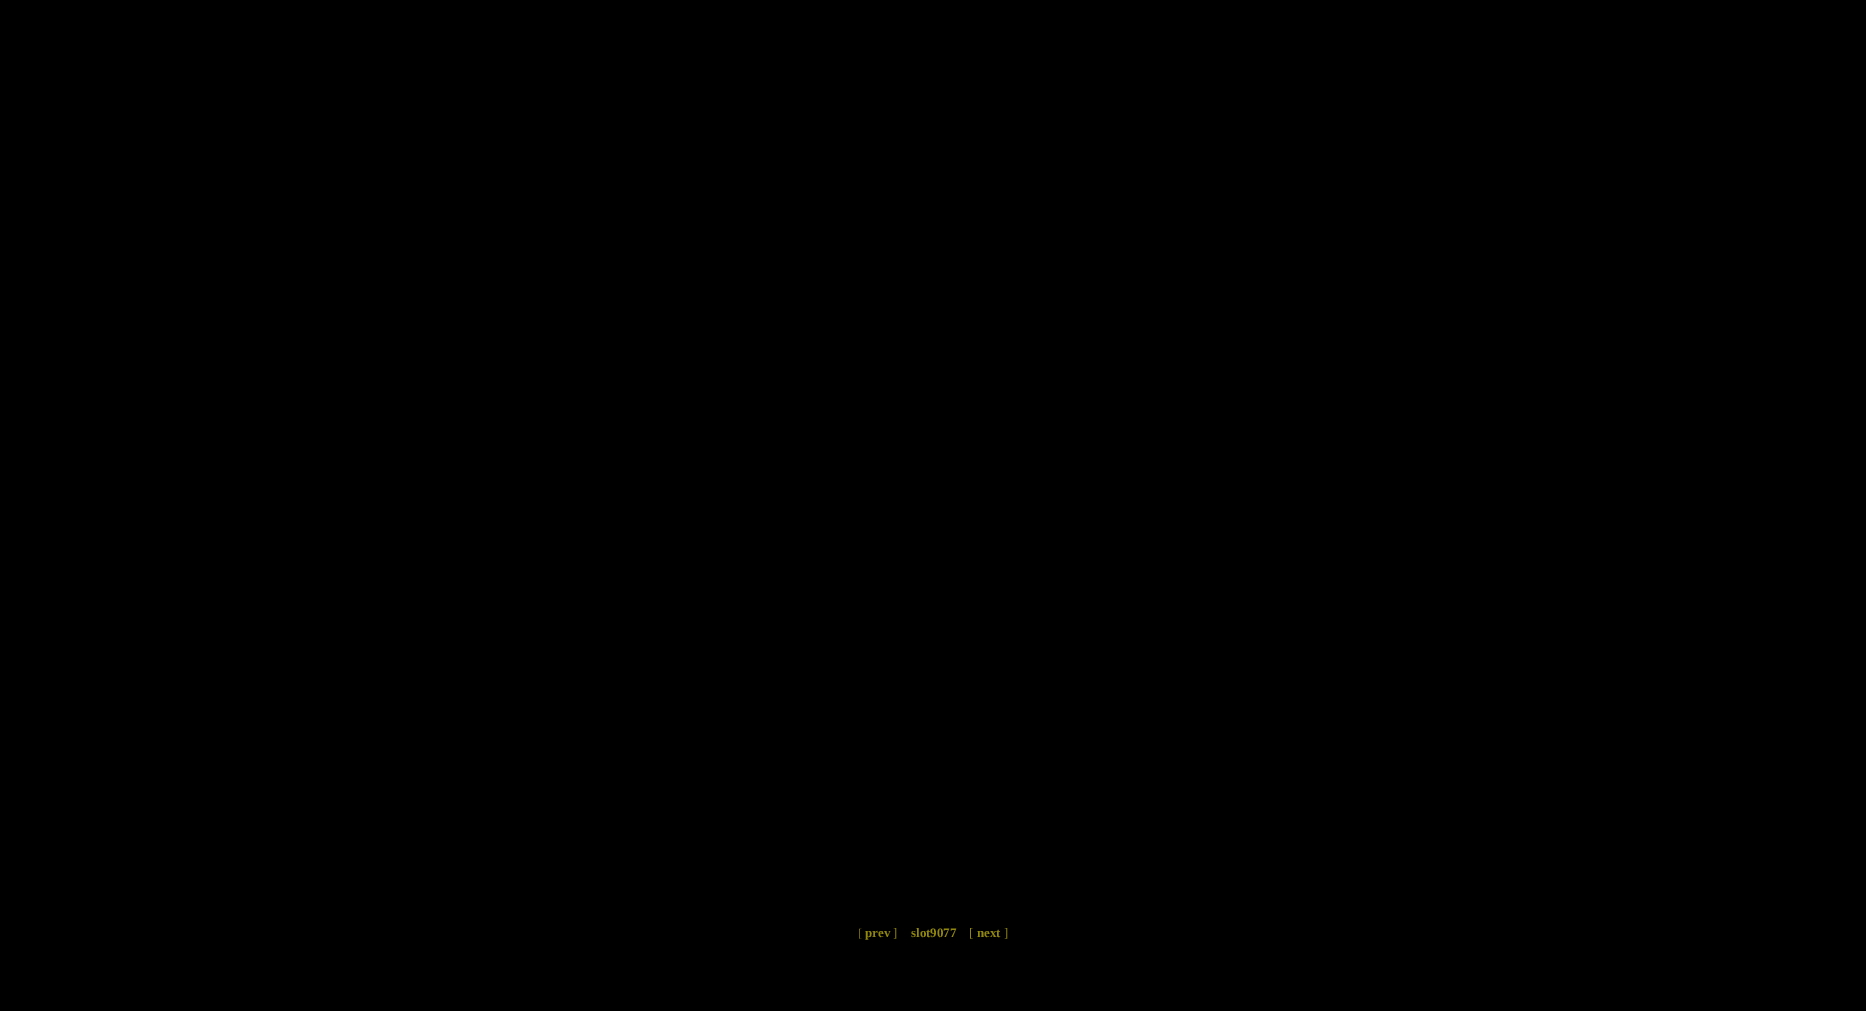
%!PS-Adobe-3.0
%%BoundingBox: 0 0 1866 1011
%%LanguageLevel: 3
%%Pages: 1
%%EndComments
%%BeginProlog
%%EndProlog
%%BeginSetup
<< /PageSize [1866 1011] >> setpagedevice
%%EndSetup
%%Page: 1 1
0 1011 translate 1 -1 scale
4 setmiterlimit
0 setgray
0 0 1866 1011 rectfill
/LiberationSerif-Regular [12 0 0 -12 0 0] selectfont
0.573 0.529 0.051 setrgbcolor
858 937 moveto ([) show
/LiberationSerif-Bold [13 0 0 -13 0 0] selectfont
865 937 moveto (prev) show
/LiberationSerif-Regular [13 0 0 -13 0 0] selectfont
893 937 moveto (]) show
/LiberationSerif-Bold [13 0 0 -13 0 0] selectfont
911 937 moveto (slot9077) show
/LiberationSerif-Regular [13 0 0 -13 0 0] selectfont
969 937 moveto ([) show
/LiberationSerif-Bold [13 0 0 -13 0 0] selectfont
977 937 moveto (next) show
/LiberationSerif-Regular [13 0 0 -13 0 0] selectfont
1004 937 moveto (]) show
showpage
%%EOF
